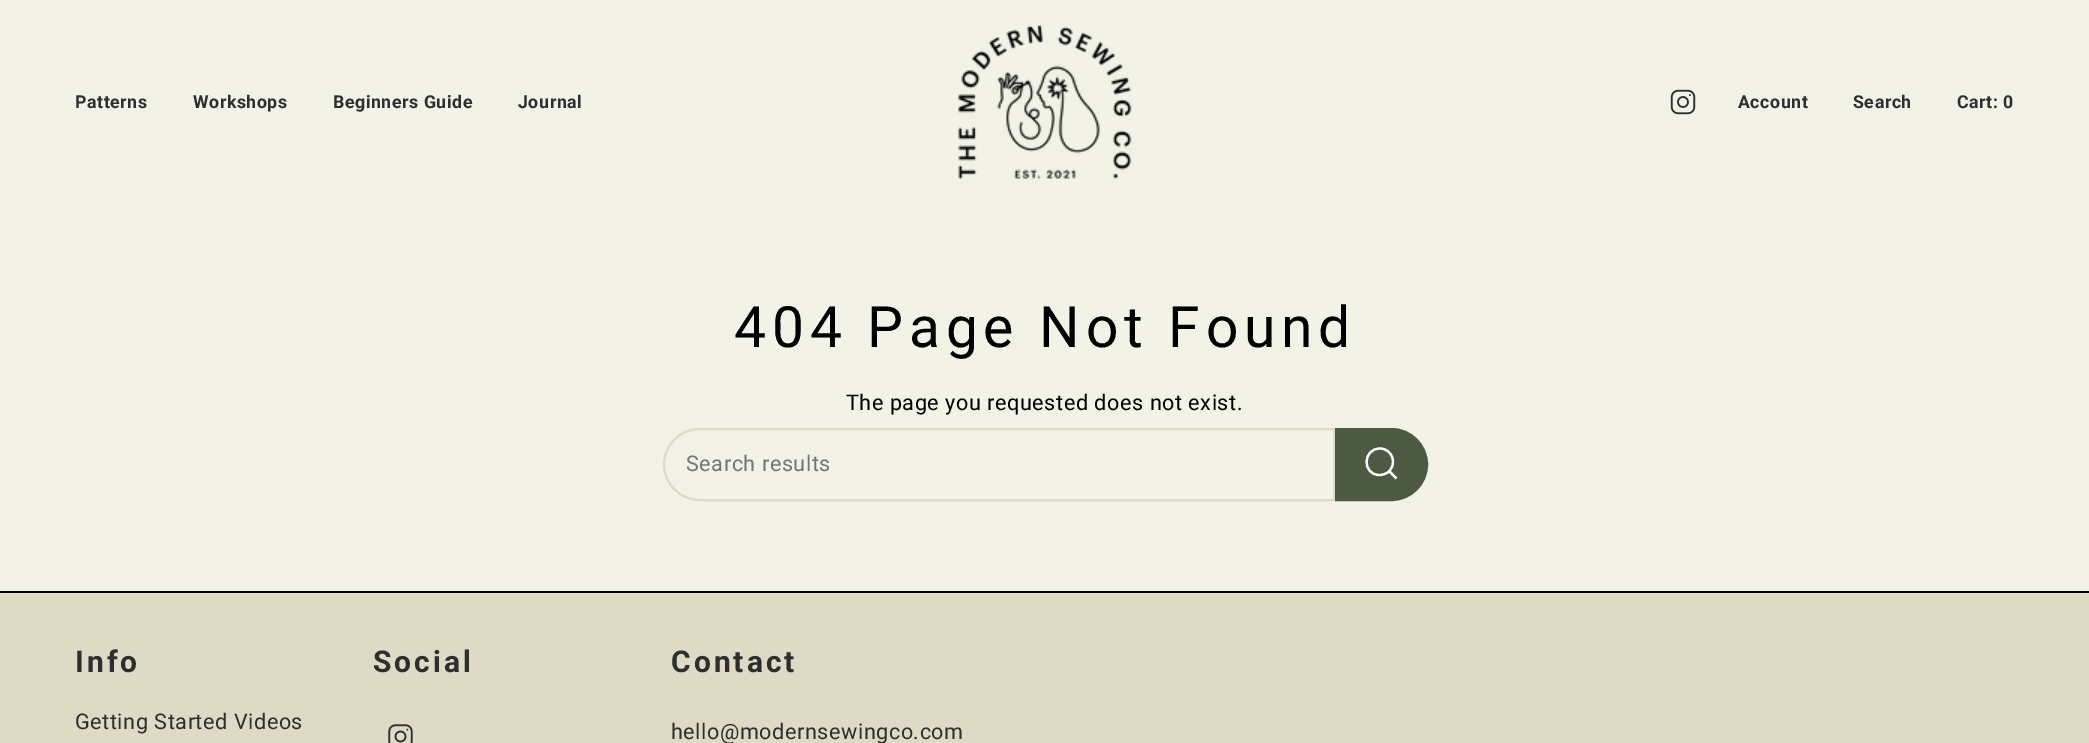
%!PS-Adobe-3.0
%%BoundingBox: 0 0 2089 743
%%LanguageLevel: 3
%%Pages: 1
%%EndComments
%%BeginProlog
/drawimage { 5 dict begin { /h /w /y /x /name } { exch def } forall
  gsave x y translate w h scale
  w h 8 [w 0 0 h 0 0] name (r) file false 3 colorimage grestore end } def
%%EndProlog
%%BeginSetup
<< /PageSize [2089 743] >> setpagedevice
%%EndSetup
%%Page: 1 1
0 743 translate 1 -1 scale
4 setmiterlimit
0.953 0.949 0.902 setrgbcolor
0 0 2089 743 rectfill
(images/1.raw) 958 25 174 154 drawimage
(images/2.raw) 1670 89 26 26 drawimage
0.871 0.855 0.773 setrgbcolor
2 setlinewidth
newpath 699.5 429 moveto 1334 429 lineto 1334 500 lineto 699.5 500 lineto 680 500 664 484 664 464.5 curveto 664 445 680 429 699.5 429 curveto closepath stroke
0.298 0.353 0.263 setrgbcolor
newpath 1336 429 moveto 1391.5 429 lineto 1411 429 1427 445 1427 464.5 curveto 1427 484 1411 500 1391.5 500 curveto 1336 500 lineto closepath gsave fill grestore
stroke
1 setgray
2.2 setlinewidth
newpath 1380 448.5 moveto 1392.5 448.5 1398 465 1387.5 472.5 curveto 1385 474.5 1382 475 1379 475 curveto 1362 474.5 1362.5 448.5 1380 448.5 curveto closepath 1389 471 moveto 1396.5 478.5 lineto stroke
0.871 0.855 0.773 setrgbcolor
0 593 2089 150 rectfill
0 setgray
0 591 2089 2 rectfill
(images/3.raw) 388 724 25 19 drawimage
/Roboto-Bold [17.75 0 0 -17.75 0 0] selectfont
0.18 setgray
75 108 moveto 0.55 0 (Patterns) ashow
193 108 moveto 0.55 0 (Workshops) ashow
333 108 moveto 0.55 0 (Beginners Guide) ashow
518 108 moveto 0.55 0 (Journal) ashow
1738 108 moveto 0.55 0 (Account) ashow
1853 108 moveto 0.55 0 (Search) ashow
1957 108 moveto 0.55 0 (Cart: 0) ashow
/Roboto-Regular [57 0 0 -57 0 0] selectfont
0 setgray
734 347 moveto 5.75 0 (404 Page Not Found) ashow
/Roboto-Regular [21.6 0 0 -21.6 0 0] selectfont
846 410 moveto 0.55 0 (The page you requested does not exist.) ashow
0.459 setgray
686 471 moveto 0.55 0 (Search results) ashow
/Roboto-Bold [30 0 0 -30 0 0] selectfont
0.18 setgray
75 672 moveto 3 0 (Info) ashow
/Roboto-Regular [21.6 0 0 -21.6 0 0] selectfont
75 729 moveto 0.55 0 (Getting Started Videos) ashow
/Roboto-Bold [30 0 0 -30 0 0] selectfont
373 672 moveto 3 0 (Social) ashow
671 672 moveto 3 0 (Contact) ashow
/Roboto-Regular [21.6 0 0 -21.6 0 0] selectfont
671 739 moveto 0.55 0 (hello@modernsewingco.com) ashow
showpage
%%EOF
